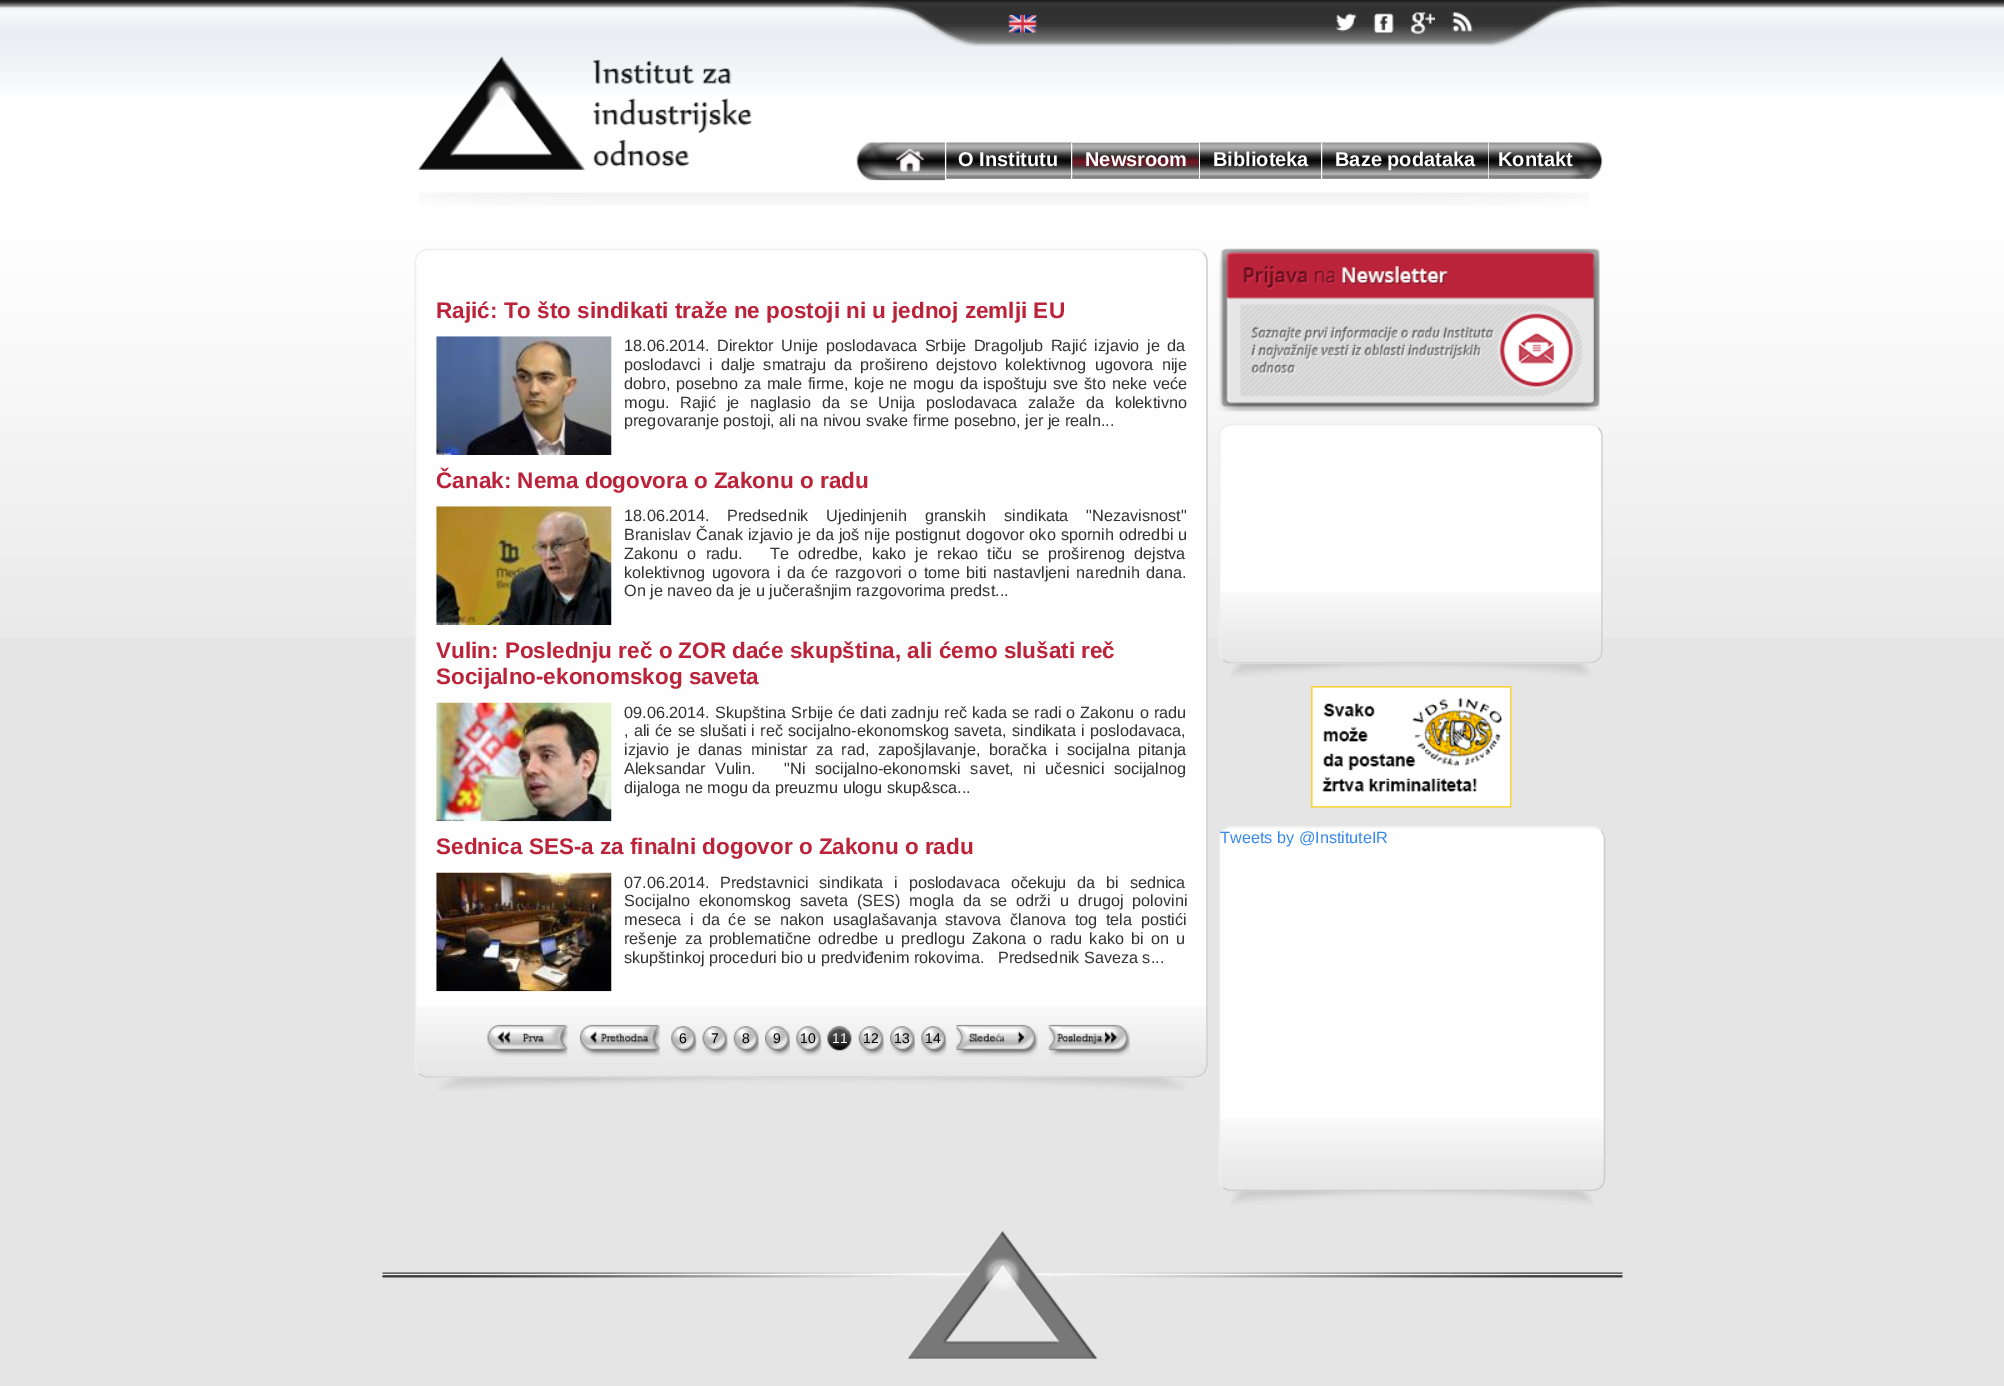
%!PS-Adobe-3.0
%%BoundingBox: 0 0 2004 1386
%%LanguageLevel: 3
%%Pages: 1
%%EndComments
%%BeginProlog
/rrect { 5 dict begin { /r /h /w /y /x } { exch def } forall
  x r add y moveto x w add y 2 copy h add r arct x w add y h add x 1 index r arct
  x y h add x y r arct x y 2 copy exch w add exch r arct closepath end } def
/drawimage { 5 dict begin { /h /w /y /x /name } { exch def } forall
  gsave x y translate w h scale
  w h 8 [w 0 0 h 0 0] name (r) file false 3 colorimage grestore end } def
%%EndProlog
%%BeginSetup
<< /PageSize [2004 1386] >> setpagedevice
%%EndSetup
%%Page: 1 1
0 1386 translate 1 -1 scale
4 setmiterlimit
1 setgray
0 0 2004 1386 rectfill
(images/1.raw) 0 0 2004 94 drawimage
(images/2.raw) 844 1 777 46 drawimage
(images/3.raw) 1008 14 29 21 drawimage
(images/4.raw) 1336 13 21 19 drawimage
(images/5.raw) 1373 13 21 23 drawimage
(images/6.raw) 1411 12 24 22 drawimage
(images/7.raw) 1452 12 21 20 drawimage
(images/8.raw) 418 56 334 114 drawimage
(images/9.raw) 856 142 90 39 drawimage
945 143 1 38 rectfill
(images/10.raw) 946 142 127 37 drawimage
1071 143 1 36 rectfill
(images/11.raw) 1072 142 128 37 drawimage
1199 143 1 36 rectfill
(images/12.raw) 1200 142 123 37 drawimage
1321 143 1 36 rectfill
(images/13.raw) 1322 142 167 37 drawimage
1488 143 1 36 rectfill
(images/14.raw) 1488 142 115 37 drawimage
(images/16.raw) 0 193 2004 444 drawimage
(images/15.raw) 419 192 1170 14 drawimage
0.898 setgray
0 637 2004 749 rectfill
0.996 setgray
415 249 793 829 13 rrect fill
(images/17.raw) 415 1006 793 71 drawimage
0.8 setgray
1.2 setlinewidth
newpath 1203.5 253 moveto 1205.5 255 1207 258 1207 261 curveto 1207 1065 lineto 1207 1068 1205.5 1071 1203.5 1073.5 curveto 1201 1075.5 1198 1077 1195 1077 curveto 427.5 1077 lineto 424.5 1077 421.5 1075.5 419 1073.5 curveto stroke
0.933 setgray
newpath 419 1073.5 moveto 417 1071 415.5 1068 415.5 1065 curveto 415.5 261 lineto 415.5 258 417 255 419 253 curveto 421.5 250.5 424.5 249.5 427.5 249.5 curveto 1195 249.5 lineto 1198 249.5 1201 250.5 1203.5 253 curveto stroke
(images/18.raw) 436 336 176 119 drawimage
(images/19.raw) 436 506 176 119 drawimage
(images/20.raw) 436 702 176 120 drawimage
(images/21.raw) 436 872 176 120 drawimage
(images/22.raw) 487 1024 81 33 drawimage
(images/23.raw) 579 1024 81 33 drawimage
(images/24.raw) 671 1026 26 30 drawimage
(images/25.raw) 702 1026 26 30 drawimage
(images/26.raw) 733 1026 26 30 drawimage
(images/27.raw) 765 1026 25 30 drawimage
(images/24.raw) 796 1026 26 30 drawimage
(images/28.raw) 827 1026 25 26 drawimage
(images/26.raw) 858 1026 26 30 drawimage
(images/29.raw) 890 1026 25 30 drawimage
(images/24.raw) 921 1026 26 30 drawimage
(images/30.raw) 956 1024 82 33 drawimage
(images/31.raw) 1048 1024 82 33 drawimage
(images/32.raw) 437 1077 748 14 drawimage
(images/33.raw) 1219 248 381 164 drawimage
0.996 setgray
1219 424 384 240 13 rrect fill
(images/34.raw) 1219 592 384 71 drawimage
0.8 setgray
newpath 1598.5 428 moveto 1600.5 430 1602 433 1602 436 curveto 1602 651 lineto 1602 654.5 1600.5 657.5 1598.5 659.5 curveto 1596 662 1593 663 1590 663 curveto 1231 663 lineto 1228 663 1225 662 1223 659.5 curveto stroke
0.933 setgray
newpath 1223 659.5 moveto 1220.5 657.5 1219.5 654.5 1219.5 651 curveto 1219.5 436 lineto 1219.5 433 1220.5 430 1223 428 curveto 1225 425.5 1228 424.5 1231 424.5 curveto 1590 424.5 lineto 1593 424.5 1596 425.5 1598.5 428 curveto stroke
(images/35.raw) 1230 663 361 14 drawimage
(images/36.raw) 1311 686 201 122 drawimage
0.996 setgray
1219 826 386 365 13 rrect fill
(images/37.raw) 1219 1119 386 71 drawimage
0.8 setgray
newpath 1601 830.5 moveto 1603 832.5 1604.5 835.5 1604.5 839 curveto 1604.5 1179 lineto 1604.5 1182 1603 1185 1601 1187 curveto 1598.5 1189.5 1595.5 1190.5 1592.5 1190.5 curveto 1231 1190.5 lineto 1228 1190.5 1225 1189.5 1223 1187 curveto stroke
0.933 setgray
newpath 1223 1187 moveto 1220.5 1185 1219.5 1182 1219.5 1179 curveto 1219.5 839 lineto 1219.5 835.5 1220.5 832.5 1223 830.5 curveto 1225 828 1228 827 1231 827 curveto 1592.5 827 lineto 1595.5 827 1598.5 828 1601 830.5 curveto stroke
(images/38.raw) 1230 1191 364 14 drawimage
(images/39.raw) 382 1231 1241 128 drawimage
/LiberationSans-Bold [20 0 0 -20 0 0] selectfont
1 setgray
958 166 moveto (O Institutu) show
1085 166 moveto (Newsroom) show
1213 166 moveto (Biblioteka) show
1335 166 moveto (Baze podataka) show
1498 166 moveto (Kontakt) show
/LiberationSans-Bold [22.5 0 0 -22.5 0 0] selectfont
0.729 0.137 0.224 setrgbcolor
436 318 moveto (Rajić: To što sindikati traže ne postoji ni u jednoj zemlji EU) show
/LiberationSans-Regular [16.25 0 0 -16.25 0 0] selectfont
0.2 setgray
624 351 moveto (18.06.2014.) show
717 351 moveto 3 0 32 (Direktor Unije poslodavaca Srbije Dragoljub Rajić izjavio je da) widthshow
624 370 moveto 3.75 0 32 (poslodavci i dalje smatraju da prošireno dejstovo kolektivnog ugovora nije) widthshow
624 389 moveto 1.2 0 32 (dobro, posebno za male firme, koje ne mogu da ispoštuju sve što neke veće) widthshow
624 408 moveto (mogu.) show
680 408 moveto 6.25 0 32 (Rajić je naglasio da se Unija poslodavaca zalaže da kolektivno) widthshow
624 426 moveto (pregovaranje postoji, ali na nivou svake firme posebno, jer je realn...) show
/LiberationSans-Bold [22.5 0 0 -22.5 0 0] selectfont
0.729 0.137 0.224 setrgbcolor
436 488 moveto (Čanak: Nema dogovora o Zakonu o radu) show
/LiberationSans-Regular [16.25 0 0 -16.25 0 0] selectfont
0.2 setgray
624 521 moveto (18.06.2014.) show
727 521 moveto 13.5 0 32 (Predsednik Ujedinjenih granskih sindikata "Nezavisnost") widthshow
624 540 moveto 0.5 0 32 (Branislav Čanak izjavio je da još nije postignut dogovor oko spornih odredbi u) widthshow
624 559 moveto 4.75 0 32 (Zakonu o radu.) widthshow
770 559 moveto 4.75 0 32 (Te odredbe, kako je rekao tiču se proširenog dejstva) widthshow
624 578 moveto 1.9 0 32 (kolektivnog ugovora i da će razgovori o tome biti nastavljeni narednih dana.) widthshow
624 596 moveto (On je naveo da je u jučerašnjim razgovorima predst...) show
/LiberationSans-Bold [22.5 0 0 -22.5 0 0] selectfont
0.729 0.137 0.224 setrgbcolor
436 658 moveto (Vulin: Poslednju reč o ZOR daće skupština, ali ćemo slušati reč) show
436 684 moveto (Socijalno-ekonomskog saveta) show
/LiberationSans-Regular [16.25 0 0 -16.25 0 0] selectfont
0.2 setgray
624 718 moveto (09.06.2014.) show
715 718 moveto 0.5 0 32 (Skupština Srbije će dati zadnju reč kada se radi o Zakonu o radu) widthshow
624 736 moveto 0.75 0 32 (, ali će se slušati i reč socijalno-ekonomskog saveta, sindikata i poslodavaca,) widthshow
624 755 moveto 3.75 0 32 (izjavio je danas ministar za rad, zapošjlavanje, boračka i socijalna pitanja) widthshow
624 774 moveto 5 0 32 (Aleksandar Vulin.) widthshow
784 774 moveto 5 0 32 ("Ni socijalno-ekonomski savet, ni učesnici socijalnog) widthshow
624 793 moveto (dijaloga ne mogu da preuzmu ulogu skup&sca...) show
/LiberationSans-Bold [22.5 0 0 -22.5 0 0] selectfont
0.729 0.137 0.224 setrgbcolor
436 854 moveto (Sednica SES-a za finalni dogovor o Zakonu o radu) show
/LiberationSans-Regular [16.25 0 0 -16.25 0 0] selectfont
0.2 setgray
624 888 moveto (07.06.2014.) show
720 888 moveto 6.25 0 32 (Predstavnici sindikata i poslodavaca očekuju da bi sednica) widthshow
624 906 moveto 4.5 0 32 (Socijalno ekonomskog saveta \(SES\) mogla da se održi u drugoj polovini) widthshow
624 925 moveto 4.1 0 32 (meseca i da će se nakon usaglašavanja stavova članova tog tela postići) widthshow
624 944 moveto 2.75 0 32 (rešenje za problematične odredbe u predlogu Zakona o radu kako bi on u) widthshow
624 963 moveto (skupštinkoj proceduri bio u predviđenim rokovima.) show
998 963 moveto (Predsednik Saveza s...) show
/LiberationSans-Regular [14 0 0 -14 0 0] selectfont
0 setgray
679 1043 moveto (6) show
711 1043 moveto (7) show
742 1043 moveto (8) show
773 1043 moveto (9) show
800 1043 moveto (10) show
1 setgray
832 1043 moveto (11) show
0 setgray
863 1043 moveto (12) show
894 1043 moveto (13) show
925 1043 moveto (14) show
/LiberationSans-Regular [16.25 0 0 -16.25 0 0] selectfont
0.216 0.533 0.91 setrgbcolor
1220 843 moveto (Tweets by @InstituteIR) show
showpage
%%EOF
